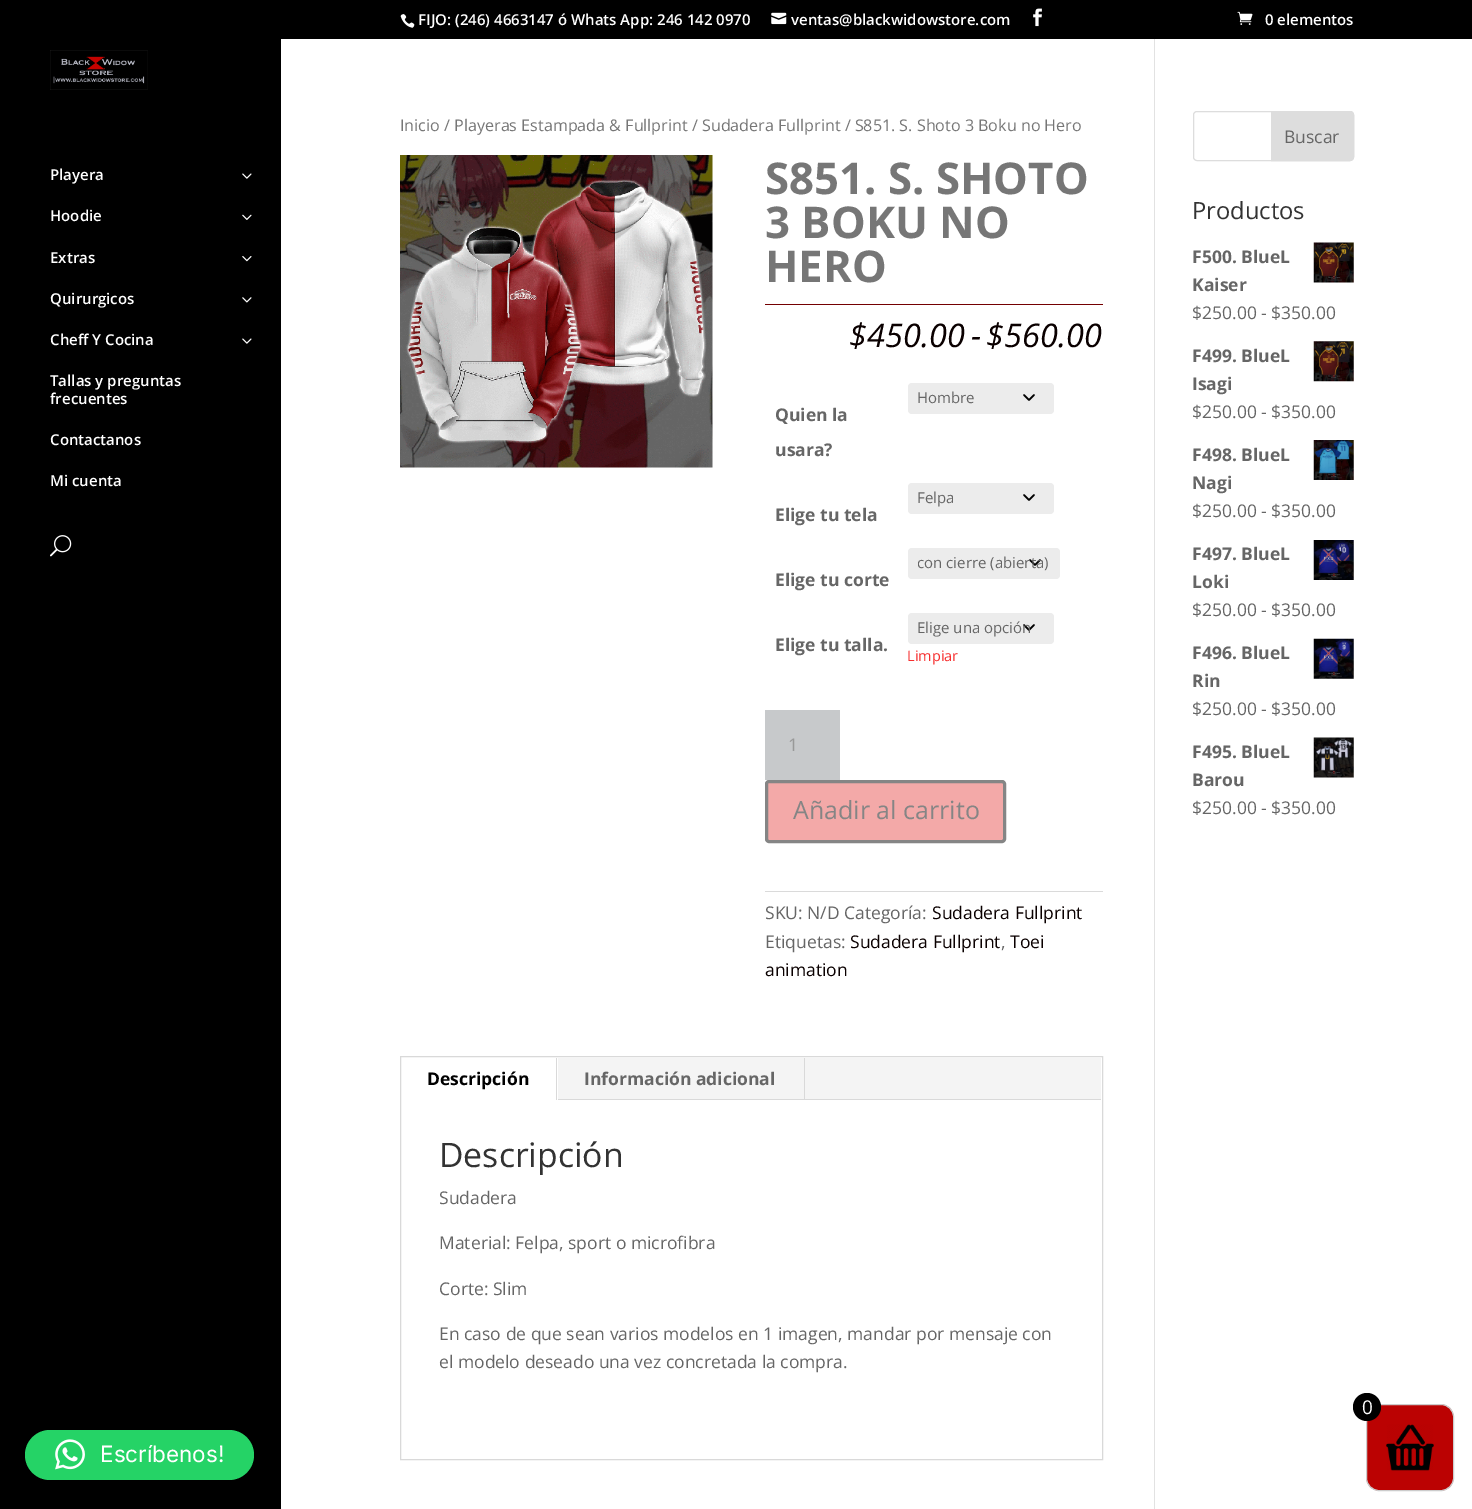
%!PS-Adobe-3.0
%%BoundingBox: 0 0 1472 1509
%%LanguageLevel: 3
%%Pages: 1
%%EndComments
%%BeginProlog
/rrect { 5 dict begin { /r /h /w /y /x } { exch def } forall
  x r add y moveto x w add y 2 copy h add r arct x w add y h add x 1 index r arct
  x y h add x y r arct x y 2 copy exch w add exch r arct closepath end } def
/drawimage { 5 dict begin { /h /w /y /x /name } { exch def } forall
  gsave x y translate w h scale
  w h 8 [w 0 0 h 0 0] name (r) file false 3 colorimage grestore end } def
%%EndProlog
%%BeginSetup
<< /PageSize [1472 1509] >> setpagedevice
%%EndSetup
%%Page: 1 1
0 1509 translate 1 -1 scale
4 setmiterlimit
0 setgray
0 0 1472 1509 rectfill
(images/1.raw) 400 14 15 14 drawimage
(images/2.raw) 771 12 16 13 drawimage
(images/3.raw) 1033 8 9 19 drawimage
(images/4.raw) 1237 11 16 14 drawimage
(images/5.raw) 50 50 98 40 drawimage
(images/6.raw) 242 173 10 6 drawimage
(images/7.raw) 242 214 10 6 drawimage
(images/8.raw) 242 256 10 6 drawimage
(images/9.raw) 242 297 10 6 drawimage
(images/6.raw) 242 338 10 6 drawimage
(images/10.raw) 50 535 22 22 drawimage
1 setgray
281 39 1191 1470 rectfill
0.886 setgray
1154 39 1 1470 rectfill
(images/11.raw) 400 155 313 313 drawimage
0.455 0 0.004 setrgbcolor
765 304 338 1 rectfill
0.925 setgray
908 383 146 31 4 rrect fill
0 setgray
1.7 setlinewidth
1 setlinecap
1 setlinejoin
newpath 1024 395 moveto 1029 400 lineto 1034 395 lineto stroke
0.925 setgray
908 483 146 31 4 rrect fill
0 setgray
newpath 1024 495 moveto 1029 500 lineto 1034 495 lineto stroke
0.925 setgray
908 548 152 31 4 rrect fill
0 setgray
newpath 1030 560 moveto 1035 565 lineto 1040 560 lineto stroke
0.925 setgray
908 613 146 31 4 rrect fill
0 setgray
newpath 1024 625 moveto 1029 630 lineto 1034 625 lineto stroke
0.78 0.788 0.796 setrgbcolor
765 710 75 70 rectfill
0.953 0.663 0.659 setrgbcolor
766.5 781.5 238 60 2.5 rrect gsave fill grestore
0.522 setgray
3 setlinewidth
0 setlinecap
0 setlinejoin
stroke
0.855 setgray
765 891 338 1 rectfill
0.851 setgray
1 setlinewidth
400.5 1056.5 702 403 rectstroke
0.957 setgray
558 1058 543 41 rectfill
0.851 setgray
556 1058 1 42 rectfill
804 1058 1 42 rectfill
558 1099 543 1 rectfill
0.867 setgray
1193.5 111.5 160 49 3.5 rrect stroke
newpath 1271.5 111.5 moveto 1350 111.5 lineto 1352 111.5 1353.5 113 1353.5 115 curveto 1353.5 157 lineto 1353.5 159 1352 160.5 1350 160.5 curveto 1271.5 160.5 lineto closepath gsave fill grestore
stroke
(images/12.raw) 1313 242 41 41 drawimage
(images/13.raw) 1313 341 41 41 drawimage
(images/14.raw) 1313 440 41 40 drawimage
(images/15.raw) 1313 540 41 40 drawimage
(images/16.raw) 1313 638 41 41 drawimage
(images/17.raw) 1313 737 41 41 drawimage
0.733 0.008 0.008 setrgbcolor
1366.5 1404.5 87 86 12.5 rrect gsave fill grestore
0.8 setgray
stroke
0 setgray
newpath 1367 1407 14 0 360 arc closepath fill
(images/18.raw) 1386 1424 48 47 drawimage
0.145 0.827 0.4 setrgbcolor
25 1430 229 50 25 rrect fill
(images/19.raw) 55 1439 30 31 drawimage
/OpenSans-SemiBold [15 0 0 -15 0 0] selectfont
1 setgray
418 25 moveto (FIJO: \(246\) 4663147 ó Whats App: 246 142 0970) show
791 25 moveto (ventas@blackwidowstore.com) show
1265 25 moveto (0 elementos) show
50 180 moveto (Playera) show
50 221 moveto (Hoodie) show
50 263 moveto (Extras) show
50 304 moveto (Quirurgicos) show
50 345 moveto (Cheff Y Cocina) show
50 386 moveto (Tallas y preguntas) show
50 404 moveto (frecuentes) show
50 445 moveto (Contactanos) show
50 486 moveto (Mi cuenta) show
/OpenSans-Regular [16.1 0 0 -16.1 0 0] selectfont
0.463 setgray
400 131 moveto (Inicio / Playeras Estampada & Fullprint / Sudadera Fullprint / S851. S. Shoto 3 Boku no Hero) show
/OpenSans-Bold [43.75 0 0 -43.75 0 0] selectfont
765 194 moveto (S851. S. SHOTO) show
765 238 moveto (3 BOKU NO) show
765 282 moveto (HERO) show
/OpenSans-Italic [32.5 0 0 -32.5 0 0] selectfont
0.039 0 0 setrgbcolor
849 347 moveto ($450.00) show
971 347 moveto (-) show
986 347 moveto ($560.00) show
/OpenSans-Regular [15 0 0 -15 0 0] selectfont
0.4 setgray
917 403 moveto (Hombre) show
/OpenSans-Bold [17.5 0 0 -17.5 0 0] selectfont
775 421 moveto (Quien la) show
775 456 moveto (usara?) show
/OpenSans-Regular [15 0 0 -15 0 0] selectfont
917 503 moveto (Felpa) show
/OpenSans-Bold [17.5 0 0 -17.5 0 0] selectfont
775 521 moveto (Elige tu tela) show
gsave
918 553 132 21 rectclip
/OpenSans-Regular [15 0 0 -15 0 0] selectfont
917 568 moveto (con cierre \(abierta\)) show
grestore
775 586 moveto (Elige tu corte) show
775 651 moveto (Elige tu talla.) show
/OpenSans-Regular [15 0 0 -15 0 0] selectfont
917 633 moveto (Elige una opción) show
/OpenSans-Regular [14.5 0 0 -14.5 0 0] selectfont
0.969 0.18 0.18 setrgbcolor
907 661 moveto (Limpiar) show
/OpenSans-Regular [17.5 0 0 -17.5 0 0] selectfont
0.6 setgray
788 751 moveto (1) show
/OpenSans-Regular [25 0 0 -25 0 0] selectfont
0.522 setgray
793 819 moveto (Añadir al carrito) show
/OpenSans-Regular [17.5 0 0 -17.5 0 0] selectfont
0.4 setgray
765 919 moveto (SKU: N/D Categoría:) show
0.039 0 0 setrgbcolor
932 919 moveto (Sudadera Fullprint) show
0.4 setgray
765 948 moveto (Etiquetas:) show
0.039 0 0 setrgbcolor
850 948 moveto (Sudadera Fullprint) show
0.4 setgray
1001 948 moveto (,) show
0.039 0 0 setrgbcolor
1010 948 moveto (Toei) show
765 976 moveto (animation) show
/OpenSans-Bold [17.5 0 0 -17.5 0 0] selectfont
0 setgray
427 1085 moveto (Descripción) show
0.4 setgray
584 1085 moveto (Información adicional) show
/OpenSans-Regular [33.75 0 0 -33.75 0 0] selectfont
0.2 setgray
439 1167 moveto (Descripción) show
/OpenSans-Regular [17.5 0 0 -17.5 0 0] selectfont
0.4 setgray
439 1204 moveto (Sudadera) show
439 1249 moveto (Material: Felpa, sport o microfibra) show
439 1295 moveto (Corte: Slim) show
439 1340 moveto (En caso de que sean varios modelos en 1 imagen, mandar por mensaje con) show
439 1368 moveto (el modelo deseado una vez concretada la compra.) show
1284 143 moveto (Buscar) show
/OpenSans-Regular [23.75 0 0 -23.75 0 0] selectfont
0.2 setgray
1192 219 moveto (Productos) show
/OpenSans-Bold [17.5 0 0 -17.5 0 0] selectfont
0.4 setgray
1192 263 moveto (F500. BlueL) show
1192 291 moveto (Kaiser) show
/OpenSans-Regular [17.5 0 0 -17.5 0 0] selectfont
1192 319 moveto ($250.00 - $350.00) show
/OpenSans-Bold [17.5 0 0 -17.5 0 0] selectfont
1192 362 moveto (F499. BlueL) show
1192 390 moveto (Isagi) show
/OpenSans-Regular [17.5 0 0 -17.5 0 0] selectfont
1192 418 moveto ($250.00 - $350.00) show
/OpenSans-Bold [17.5 0 0 -17.5 0 0] selectfont
1192 461 moveto (F498. BlueL) show
1192 489 moveto (Nagi) show
/OpenSans-Regular [17.5 0 0 -17.5 0 0] selectfont
1192 517 moveto ($250.00 - $350.00) show
/OpenSans-Bold [17.5 0 0 -17.5 0 0] selectfont
1192 560 moveto (F497. BlueL) show
1192 588 moveto (Loki) show
/OpenSans-Regular [17.5 0 0 -17.5 0 0] selectfont
1192 616 moveto ($250.00 - $350.00) show
/OpenSans-Bold [17.5 0 0 -17.5 0 0] selectfont
1192 659 moveto (F496. BlueL) show
1192 687 moveto (Rin) show
/OpenSans-Regular [17.5 0 0 -17.5 0 0] selectfont
1192 715 moveto ($250.00 - $350.00) show
/OpenSans-Bold [17.5 0 0 -17.5 0 0] selectfont
1192 758 moveto (F495. BlueL) show
1192 786 moveto (Barou) show
/OpenSans-Regular [17.5 0 0 -17.5 0 0] selectfont
1192 814 moveto ($250.00 - $350.00) show
/OpenSans-Regular [19 0 0 -19 0 0] selectfont
1 setgray
1362 1414 moveto (0) show
/Inter-Regular [22.5 0 0 -22.5 0 0] selectfont
100 1462 moveto (Escríbenos!) show
showpage
%%EOF
